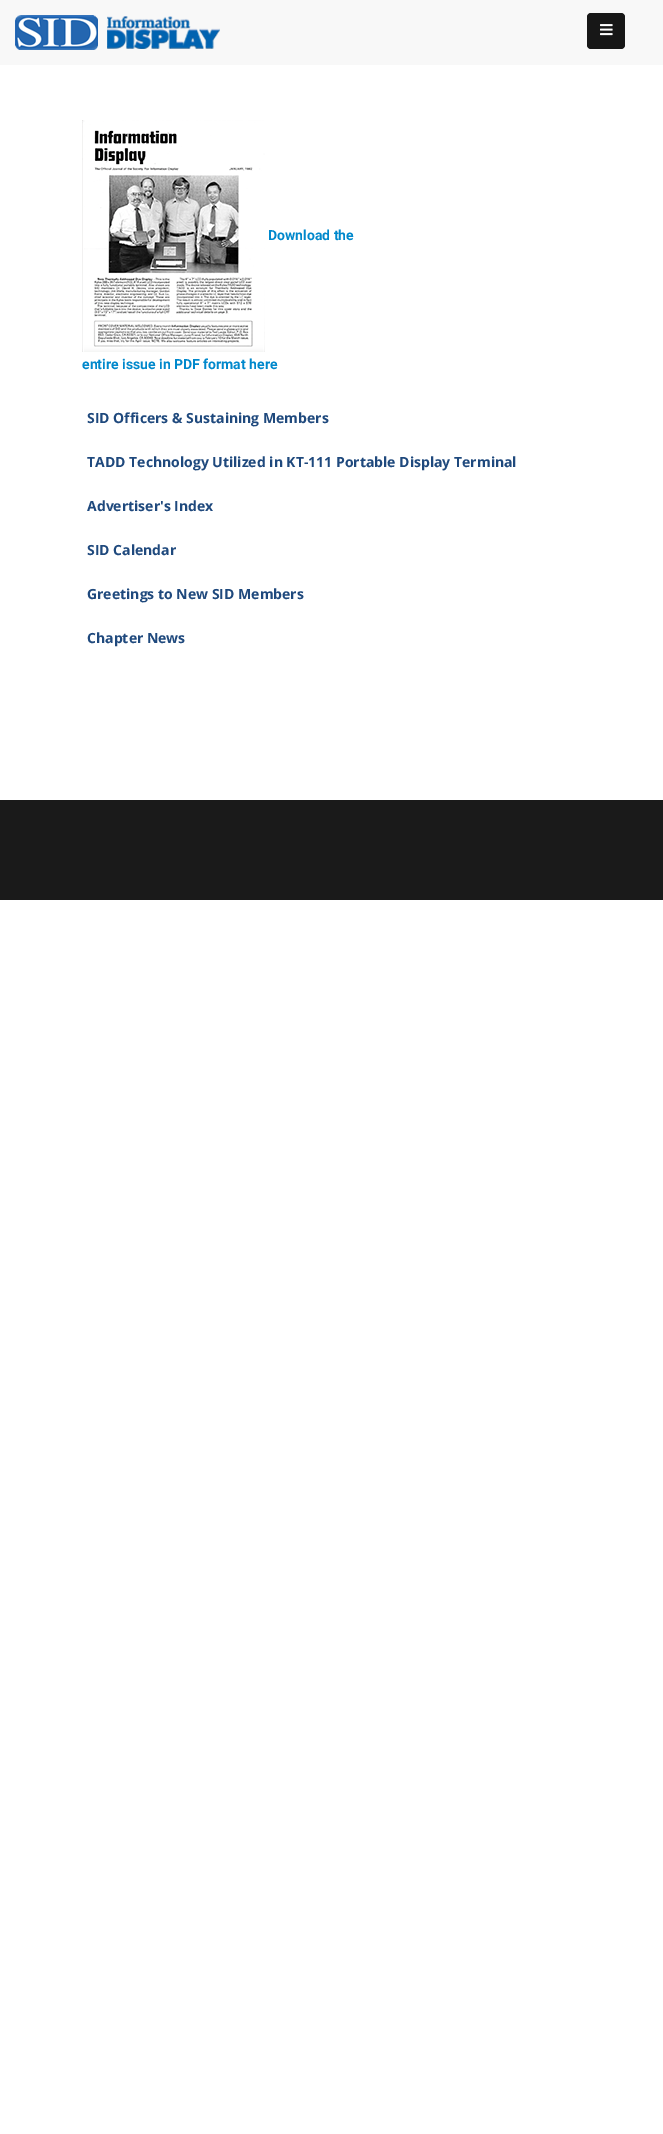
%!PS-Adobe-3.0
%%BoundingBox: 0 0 663 2134
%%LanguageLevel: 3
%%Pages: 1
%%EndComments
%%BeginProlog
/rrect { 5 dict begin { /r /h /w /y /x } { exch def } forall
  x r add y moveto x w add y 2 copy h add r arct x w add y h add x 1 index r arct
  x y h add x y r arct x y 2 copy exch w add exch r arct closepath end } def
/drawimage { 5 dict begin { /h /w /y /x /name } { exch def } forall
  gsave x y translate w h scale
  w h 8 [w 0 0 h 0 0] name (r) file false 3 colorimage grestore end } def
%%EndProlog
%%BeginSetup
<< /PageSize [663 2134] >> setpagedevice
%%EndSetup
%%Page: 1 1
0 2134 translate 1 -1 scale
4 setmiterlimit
1 setgray
0 0 663 2134 rectfill
0.973 setgray
0 0 663 65 rectfill
(images/1.raw) 15 15 205 35 drawimage
0.09 setgray
587 13 38 36 4 rrect fill
(images/2.raw) 600 24 13 12 drawimage
(images/3.raw) 82 120 183 232 drawimage
0.102 setgray
0 800 663 100 rectfill
/Roboto-Bold [14 0 0 -14 0 0] selectfont
0 0.533 0.8 setrgbcolor
268 240 moveto (Download the) show
82 369 moveto (entire issue in PDF format here) show
/OpenSans-Bold [14 0 0 -14 0 0] selectfont
0.122 0.286 0.49 setrgbcolor
87 423 moveto (SID Officers & Sustaining Members) show
87 467 moveto (TADD Technology Utilized in KT-111 Portable Display Terminal) show
87 511 moveto (Advertiser's Index) show
87 555 moveto (SID Calendar) show
87 599 moveto (Greetings to New SID Members) show
87 643 moveto (Chapter News) show
showpage
%%EOF
